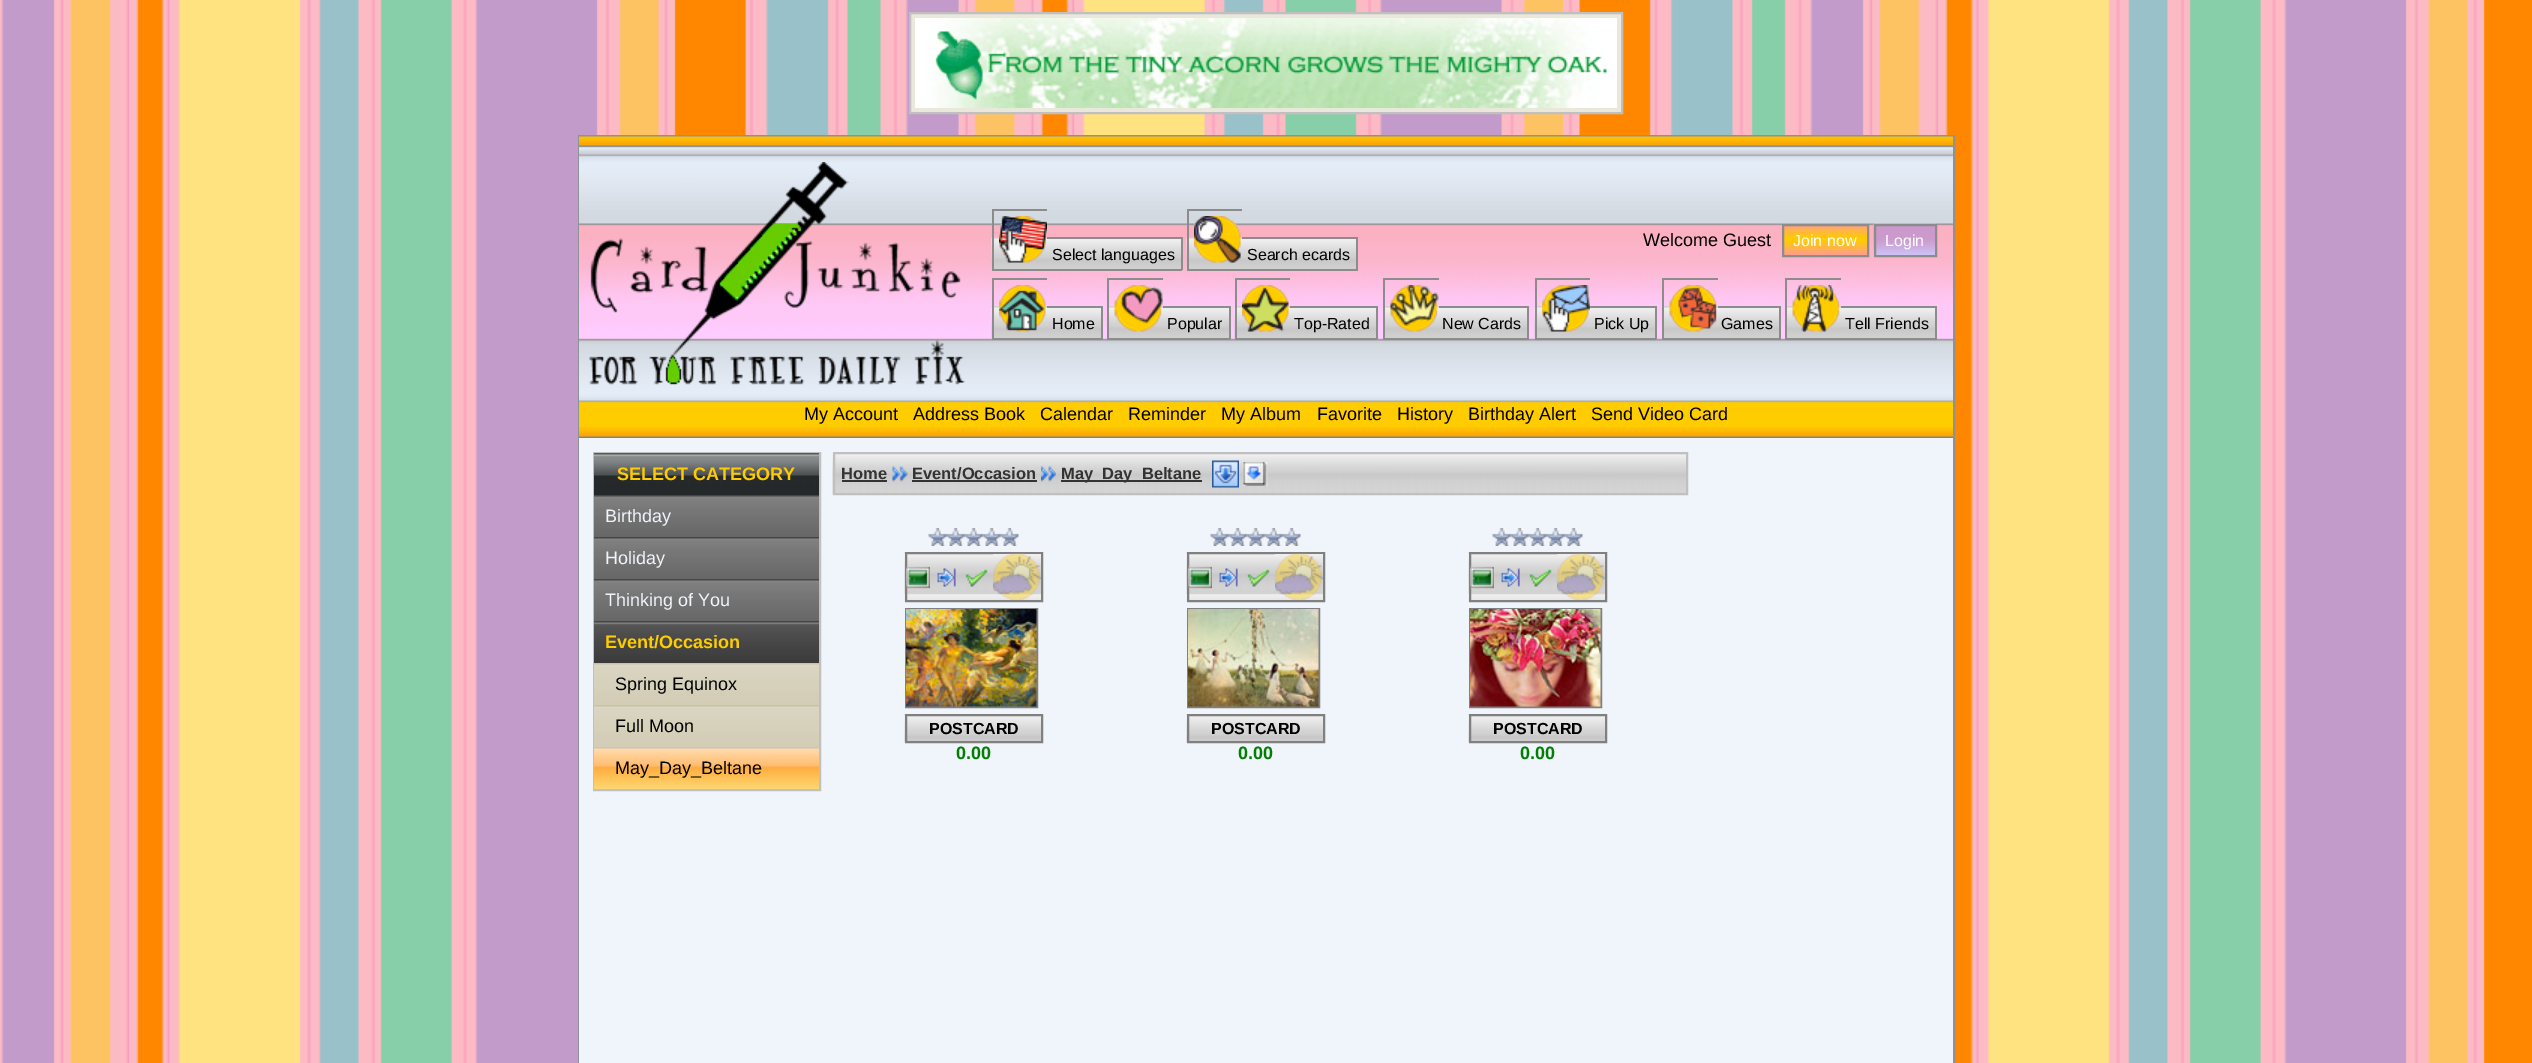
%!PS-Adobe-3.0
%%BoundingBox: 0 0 2532 1063
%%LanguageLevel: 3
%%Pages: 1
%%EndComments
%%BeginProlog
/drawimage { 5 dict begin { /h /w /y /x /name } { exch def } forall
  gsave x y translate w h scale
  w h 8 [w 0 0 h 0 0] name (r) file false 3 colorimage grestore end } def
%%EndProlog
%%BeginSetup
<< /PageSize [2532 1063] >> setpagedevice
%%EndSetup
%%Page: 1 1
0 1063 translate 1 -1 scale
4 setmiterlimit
1 setgray
0 0 2532 1063 rectfill
(images/1.raw) 0 0 2532 1063 drawimage
0.918 0.906 0.859 setrgbcolor
newpath 910 13 moveto 1622 13 lineto 1622 113 lineto 910 113 lineto closepath gsave fill grestore
0.753 setgray
2 setlinewidth
stroke
(images/2.raw) 915 18 702 90 drawimage
0.557 0.569 0.584 setrgbcolor
579 136 1375 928 rectstroke
(images/3.raw) 579 136 1374 302 drawimage
(images/4.raw) 589 162 376 223 drawimage
(images/5.raw) 1782 223 87 32 drawimage
(images/6.raw) 1873 223 64 34 drawimage
0.549 setgray
1783 225 85 31 rectstroke
1875 225 61 31 rectstroke
(images/9.raw) 991 237 190 33 drawimage
(images/7.raw) 999 216 48 47 drawimage
(images/10.raw) 1186 237 170 33 drawimage
(images/8.raw) 1194 216 47 47 drawimage
992 209 55 2 rectfill
992 269 55 2 rectfill
992 209 2 61 rectfill
1047 237 135 2 rectfill
1181 237 2 33 rectfill
1047 269 135 2 rectfill
1187 209 55 2 rectfill
1187 269 55 2 rectfill
1187 209 2 61 rectfill
1242 237 116 2 rectfill
1356 237 2 33 rectfill
1242 269 116 2 rectfill
(images/18.raw) 991 306 110 33 drawimage
(images/11.raw) 999 285 47 47 drawimage
(images/19.raw) 1109 306 120 32 drawimage
(images/12.raw) 1114 285 49 47 drawimage
(images/20.raw) 1234 306 142 33 drawimage
(images/13.raw) 1242 285 47 47 drawimage
(images/21.raw) 1385 306 142 32 drawimage
(images/14.raw) 1390 285 49 47 drawimage
(images/22.raw) 1534 306 121 33 drawimage
(images/15.raw) 1542 285 48 47 drawimage
(images/23.raw) 1664 306 115 32 drawimage
(images/16.raw) 1669 285 48 47 drawimage
(images/24.raw) 1787 306 148 32 drawimage
(images/17.raw) 1792 285 48 47 drawimage
992 278 55 2 rectfill
992 338 55 2 rectfill
992 278 2 61 rectfill
1047 306 56 2 rectfill
1101 306 2 33 rectfill
1047 338 56 2 rectfill
1107 278 56 2 rectfill
1107 338 56 2 rectfill
1107 278 2 61 rectfill
1163 306 67 2 rectfill
1229 306 2 33 rectfill
1163 338 67 2 rectfill
1235 278 55 2 rectfill
1235 338 55 2 rectfill
1235 278 2 61 rectfill
1290 306 87 2 rectfill
1376 306 2 33 rectfill
1290 338 87 2 rectfill
1383 278 56 2 rectfill
1383 338 56 2 rectfill
1383 278 2 61 rectfill
1439 306 90 2 rectfill
1527 306 2 33 rectfill
1439 338 90 2 rectfill
1535 278 55 2 rectfill
1535 338 55 2 rectfill
1535 278 2 61 rectfill
1590 306 66 2 rectfill
1655 306 2 33 rectfill
1590 338 66 2 rectfill
1662 278 56 2 rectfill
1662 338 56 2 rectfill
1662 278 2 61 rectfill
1718 306 63 2 rectfill
1779 306 2 33 rectfill
1718 338 63 2 rectfill
1785 278 56 2 rectfill
1785 338 56 2 rectfill
1785 278 2 61 rectfill
1841 306 96 2 rectfill
1935 306 2 33 rectfill
1841 338 96 2 rectfill
0.941 0.957 0.984 setrgbcolor
579 438 1374 625 rectfill
0.753 setgray
594 453 226 337 rectstroke
(images/25.raw) 594 453 225 42 drawimage
(images/26.raw) 594 495 225 42 drawimage
(images/27.raw) 594 537 225 42 drawimage
(images/28.raw) 594 579 225 42 drawimage
(images/29.raw) 594 621 225 42 drawimage
(images/30.raw) 594 663 225 42 drawimage
(images/31.raw) 594 705 225 42 drawimage
(images/32.raw) 594 747 225 42 drawimage
(images/33.raw) 832 453 854 42 drawimage
834 453 853 41 rectstroke
0.2 setgray
842 480 45 2 rectfill
(images/34.raw) 892 466 16 16 drawimage
912 480 125 2 rectfill
(images/35.raw) 1041 466 15 16 drawimage
1061 480 141 2 rectfill
(images/36.raw) 1212 460 27 28 drawimage
(images/37.raw) 1243 462 25 24 drawimage
(images/38.raw) 928 528 91 18 drawimage
(images/39.raw) 904 552 137 50 drawimage
0.502 setgray
906 553 136 48 rectstroke
(images/40.raw) 906 566 24 23 drawimage
(images/41.raw) 937 568 19 19 drawimage
(images/42.raw) 965 569 23 18 drawimage
(images/43.raw) 993 553 48 47 drawimage
906 609 131 98 rectstroke
(images/44.raw) 906 609 131 98 drawimage
(images/45.raw) 904 714 137 29 drawimage
906 715 136 27 rectstroke
(images/38.raw) 1210 528 91 18 drawimage
(images/39.raw) 1186 552 137 50 drawimage
1188 553 136 48 rectstroke
(images/46.raw) 1188 566 24 23 drawimage
(images/41.raw) 1219 568 19 19 drawimage
(images/42.raw) 1247 569 23 18 drawimage
(images/47.raw) 1275 553 48 47 drawimage
1188 609 131 98 rectstroke
(images/48.raw) 1188 609 131 98 drawimage
(images/45.raw) 1186 714 137 29 drawimage
1188 715 136 27 rectstroke
(images/49.raw) 1492 528 91 18 drawimage
(images/50.raw) 1468 552 137 50 drawimage
1470 553 136 48 rectstroke
(images/46.raw) 1470 566 24 23 drawimage
(images/51.raw) 1501 568 19 19 drawimage
(images/42.raw) 1529 569 23 18 drawimage
(images/43.raw) 1557 553 48 47 drawimage
1470 609 131 98 rectstroke
(images/52.raw) 1470 609 131 98 drawimage
(images/53.raw) 1468 714 137 29 drawimage
1470 715 136 27 rectstroke
/LiberationSans-Regular [18 0 0 -18 0 0] selectfont
0 setgray
1643 246 moveto (Welcome Guest) show
/LiberationSans-Regular [16 0 0 -16 0 0] selectfont
1 setgray
1793 246 moveto (Join now) show
1885 246 moveto (Login) show
0 setgray
1052 260 moveto (Select languages) show
1247 260 moveto (Search ecards) show
1052 329 moveto (Home) show
1167 329 moveto (Popular) show
1294 329 moveto (Top-Rated) show
1442 329 moveto (New Cards) show
1594 329 moveto (Pick Up) show
1721 329 moveto (Games) show
1845 329 moveto (Tell Friends) show
/LiberationSans-Regular [18 0 0 -18 0 0] selectfont
804 420 moveto (My Account) show
913 420 moveto (Address Book) show
1040 420 moveto (Calendar) show
1128 420 moveto (Reminder) show
1221 420 moveto (My Album) show
1317 420 moveto (Favorite) show
1397 420 moveto (History) show
1468 420 moveto (Birthday Alert) show
1591 420 moveto (Send Video Card) show
/LiberationSans-Bold [18 0 0 -18 0 0] selectfont
1 0.8 0 setrgbcolor
617 480 moveto (SELECT CATEGORY) show
/LiberationSans-Regular [18 0 0 -18 0 0] selectfont
0.941 0.957 0.984 setrgbcolor
605 522 moveto (Birthday) show
605 564 moveto (Holiday) show
605 606 moveto (Thinking of You) show
/LiberationSans-Bold [18 0 0 -18 0 0] selectfont
1 0.8 0 setrgbcolor
605 648 moveto (Event/Occasion) show
/LiberationSans-Regular [18 0 0 -18 0 0] selectfont
0 setgray
615 690 moveto (Spring Equinox) show
615 732 moveto (Full Moon) show
615 774 moveto (May_Day_Beltane) show
/LiberationSans-Bold [16.5 0 0 -16.5 0 0] selectfont
0.2 setgray
841 479 moveto (Home) show
912 479 moveto (Event/Occasion) show
1061 479 moveto (May_Day_Beltane) show
/LiberationSans-Bold [16 0 0 -16 0 0] selectfont
0 setgray
929 734 moveto (POSTCARD) show
/LiberationSans-Bold [18 0 0 -18 0 0] selectfont
0 0.502 0 setrgbcolor
956 759 moveto (0.00) show
/LiberationSans-Bold [16 0 0 -16 0 0] selectfont
0 setgray
1211 734 moveto (POSTCARD) show
/LiberationSans-Bold [18 0 0 -18 0 0] selectfont
0 0.502 0 setrgbcolor
1238 759 moveto (0.00) show
/LiberationSans-Bold [16 0 0 -16 0 0] selectfont
0 setgray
1493 734 moveto (POSTCARD) show
/LiberationSans-Bold [18 0 0 -18 0 0] selectfont
0 0.502 0 setrgbcolor
1520 759 moveto (0.00) show
showpage
%%EOF
